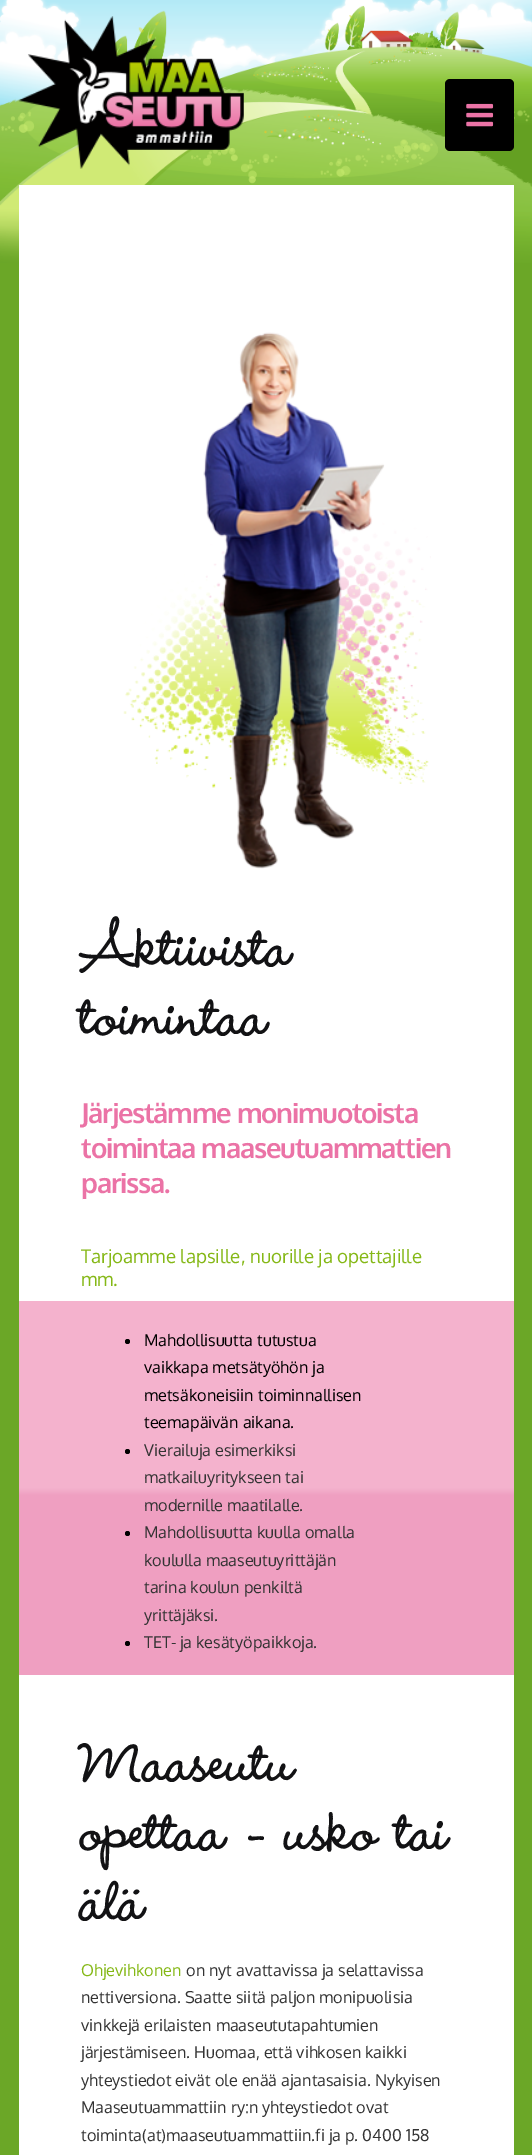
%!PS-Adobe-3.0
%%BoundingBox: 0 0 532 2155
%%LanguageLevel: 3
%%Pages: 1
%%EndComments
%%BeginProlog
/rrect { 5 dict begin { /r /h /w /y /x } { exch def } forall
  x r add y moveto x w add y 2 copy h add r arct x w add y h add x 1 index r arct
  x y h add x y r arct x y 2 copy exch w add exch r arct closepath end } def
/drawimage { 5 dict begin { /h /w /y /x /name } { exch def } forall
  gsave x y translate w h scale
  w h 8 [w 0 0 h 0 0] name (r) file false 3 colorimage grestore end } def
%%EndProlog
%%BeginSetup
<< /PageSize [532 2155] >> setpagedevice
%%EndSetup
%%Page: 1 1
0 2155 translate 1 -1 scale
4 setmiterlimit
0.42 0.655 0.153 setrgbcolor
0 0 532 2155 rectfill
(images/1.raw) 0 0 532 263 drawimage
(images/2.raw) 18 16 226 153 drawimage
0 setgray
445 79 69 72 5 rrect fill
(images/3.raw) 466 103 28 24 drawimage
1 setgray
19 185 495 1970 rectfill
(images/4.raw) 123 332 308 537 drawimage
gsave newpath 19 1301 moveto 514 1301 lineto 514 1675 lineto 19 1675 lineto closepath clip newpath
<< /ShadingType 2 /ColorSpace /DeviceRGB /Coords [266 1301 266 1675] /Extend [true true] /Function << /FunctionType 3 /Domain [0 1] /Functions [<< /FunctionType 2 /Domain [0 1] /C0 [0.957 0.698 0.804] /C1 [0.957 0.698 0.804] /N 1 >> << /FunctionType 2 /Domain [0 1] /C0 [0.957 0.698 0.804] /C1 [0.937 0.624 0.757] /N 1 >> << /FunctionType 2 /Domain [0 1] /C0 [0.937 0.624 0.757] /C1 [0.937 0.624 0.757] /N 1 >>] /Bounds [0.5 0.52] /Encode [0 1 0 1 0 1] >> >> shfill grestore
0 setgray
newpath 127.5 1341.5 2.5 0 360 arc closepath fill
newpath 127.5 1451.5 2.5 0 360 arc closepath fill
newpath 127.5 1533.5 2.5 0 360 arc closepath fill
newpath 127.5 1643.5 2.5 0 360 arc closepath fill
/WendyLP-Bold [73 0 0 -73 0 0] selectfont
0.071 0.071 0.078 setrgbcolor
81 966 moveto (Aktiivista) show
81 1035 moveto (toimintaa) show
/Oxygen-Bold [27.5 0 0 -27.5 0 0] selectfont
0.922 0.451 0.651 setrgbcolor
81 1123 moveto -1.25 0 (Järjestämme monimuotoista) ashow
81 1158 moveto -1.25 0 (toimintaa maaseutuammattien) ashow
81 1193 moveto -1.25 0 (parissa.) ashow
/Oxygen-Regular [18.75 0 0 -18.75 0 0] selectfont
0.522 0.722 0.086 setrgbcolor
81 1263 moveto (Tarjoamme lapsille, nuorille ja opettajille) show
81 1286 moveto (mm.) show
/Oxygen-Regular [16.25 0 0 -16.25 0 0] selectfont
0 setgray
144 1346 moveto (Mahdollisuutta tutustua) show
144 1373 moveto (vaikkapa metsätyöhön ja) show
144 1401 moveto (metsäkoneisiin toiminnallisen) show
144 1428 moveto (teemapäivän aikana.) show
0.2 setgray
144 1456 moveto (Vierailuja esimerkiksi) show
144 1483 moveto (matkailuyritykseen tai) show
144 1511 moveto (modernille maatilalle.) show
144 1538 moveto (Mahdollisuutta kuulla omalla) show
144 1566 moveto (koululla maaseutuyrittäjän) show
144 1593 moveto (tarina koulun penkiltä) show
144 1621 moveto (yrittäjäksi.) show
144 1648 moveto (TET- ja kesätyöpaikkoja.) show
/WendyLP-Bold [73 0 0 -73 0 0] selectfont
0.071 0.071 0.078 setrgbcolor
81 1781 moveto (Maaseutu) show
81 1850 moveto (opettaa - usko tai) show
81 1920 moveto (älä) show
/Oxygen-Regular [16.25 0 0 -16.25 0 0] selectfont
0.522 0.722 0.086 setrgbcolor
81 1976 moveto (Ohjevihkonen) show
0.2 setgray
186 1976 moveto (on nyt avattavissa ja selattavissa) show
81 2003 moveto (nettiversiona. Saatte siitä paljon monipuolisia) show
81 2031 moveto (vinkkejä erilaisten maaseututapahtumien) show
81 2058 moveto (järjestämiseen. Huomaa, että vihkosen kaikki) show
81 2086 moveto (yhteystiedot eivät ole enää ajantasaisia. Nykyisen) show
81 2113 moveto (Maaseutuammattiin ry:n yhteystiedot ovat) show
81 2141 moveto (toiminta\(at\)maaseutuammattiin.fi ja p. 0400 158) show
showpage
%%EOF
